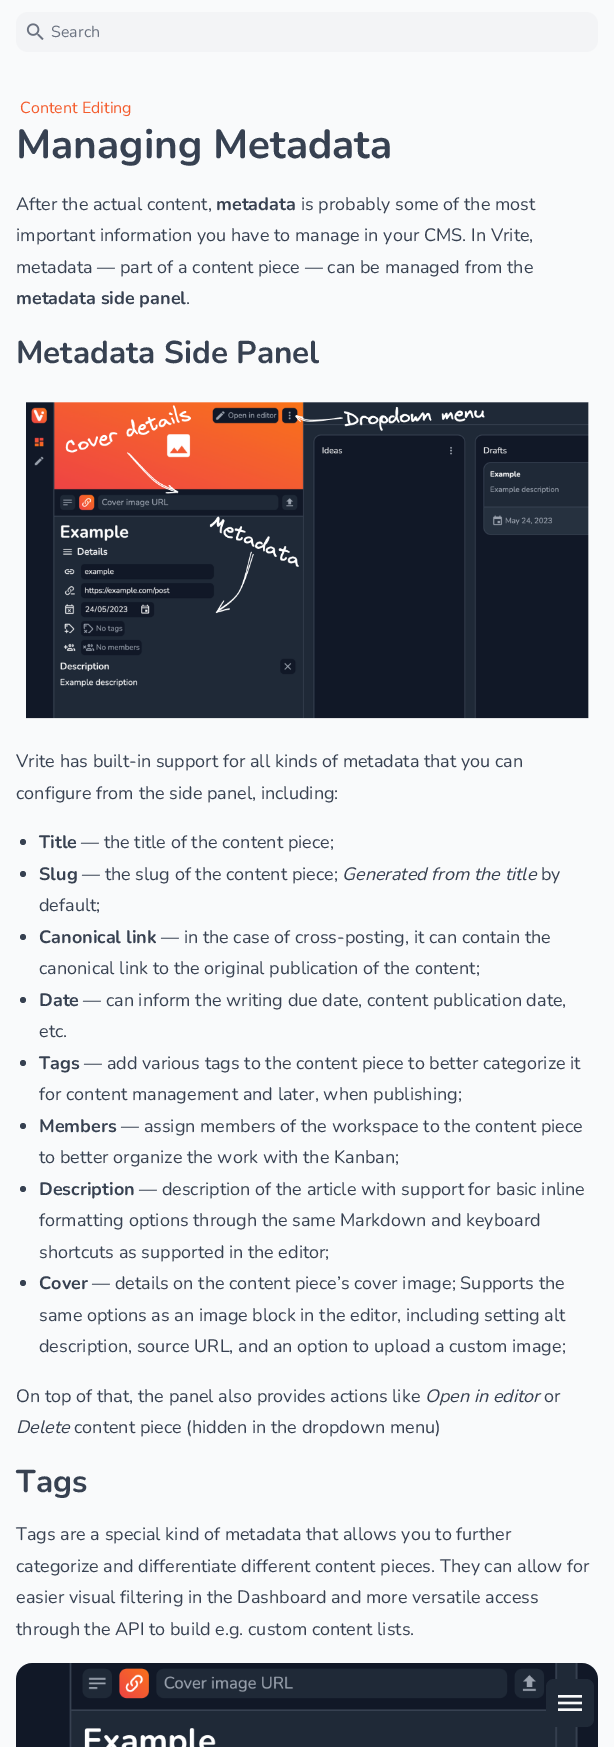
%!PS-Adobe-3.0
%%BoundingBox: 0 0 614 1747
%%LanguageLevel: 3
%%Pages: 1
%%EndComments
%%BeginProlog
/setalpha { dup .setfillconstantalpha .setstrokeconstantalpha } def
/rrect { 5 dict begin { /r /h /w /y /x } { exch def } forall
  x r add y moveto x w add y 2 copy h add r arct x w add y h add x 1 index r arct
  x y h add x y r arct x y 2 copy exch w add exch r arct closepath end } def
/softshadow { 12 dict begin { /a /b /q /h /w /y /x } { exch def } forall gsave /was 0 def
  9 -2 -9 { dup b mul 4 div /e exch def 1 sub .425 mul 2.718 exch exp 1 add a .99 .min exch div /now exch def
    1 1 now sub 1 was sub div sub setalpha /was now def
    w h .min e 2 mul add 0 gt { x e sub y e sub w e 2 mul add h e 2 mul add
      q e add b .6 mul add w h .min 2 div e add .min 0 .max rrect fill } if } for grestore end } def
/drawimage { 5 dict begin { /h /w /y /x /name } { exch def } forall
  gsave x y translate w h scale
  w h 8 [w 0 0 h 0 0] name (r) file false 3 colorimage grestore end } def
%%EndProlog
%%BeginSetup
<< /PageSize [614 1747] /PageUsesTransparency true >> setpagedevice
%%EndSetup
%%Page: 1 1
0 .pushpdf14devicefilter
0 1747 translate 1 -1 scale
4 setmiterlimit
0.976 0.98 0.984 setrgbcolor
0 0 614 1747 rectfill
gsave
newpath 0 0 moveto 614 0 lineto 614 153 lineto 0 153 lineto closepath 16 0 moveto 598 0 lineto 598 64 lineto 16 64 lineto closepath eoclip newpath
28 37 558 40 0 25 1 softshadow
grestore
0.953 0.957 0.965 setrgbcolor
16 12 582 40 12 rrect fill
(images/1.raw) 26 23 18 17 drawimage
(images/2.raw) 26 402 563 317 drawimage
0.216 0.255 0.318 setrgbcolor
newpath 23 842 3 0 360 arc closepath fill
newpath 23 874 3 0 360 arc closepath fill
newpath 23 937 3 0 360 arc closepath fill
newpath 23 1000 3 0 360 arc closepath fill
newpath 23 1063 3 0 360 arc closepath fill
newpath 23 1126 3 0 360 arc closepath fill
newpath 23 1189 3 0 360 arc closepath fill
newpath 23 1283 3 0 360 arc closepath fill
(images/3.raw) 16 1663 582 84 drawimage
0.122 0.161 0.216 setrgbcolor
546 1679 48 48 8 rrect fill
(images/4.raw) 558 1695 24 16 drawimage
/Nunito-Regular [16 0 0 -16 0 0] selectfont
0.42 0.447 0.502 setrgbcolor
51 37 moveto (Search) show
0.957 0.361 0.176 setrgbcolor
20 113 moveto (Content Editing) show
/Nunito-Bold [40.5 0 0 -40.5 0 0] selectfont
0.216 0.255 0.318 setrgbcolor
16 158 moveto (Managing Metadata) show
/Nunito-Regular [18 0 0 -18 0 0] selectfont
16 210 moveto (After the actual content,) show
/Nunito-Bold [18 0 0 -18 0 0] selectfont
216 210 moveto (metadata) show
/Nunito-Regular [18 0 0 -18 0 0] selectfont
301 210 moveto (is probably some of the most) show
16 241 moveto (important information you have to manage in your CMS. In Vrite,) show
16 273 moveto (metadata — part of a content piece — can be managed from the) show
/Nunito-Bold [18 0 0 -18 0 0] selectfont
16 304 moveto (metadata side panel) show
/Nunito-Regular [18 0 0 -18 0 0] selectfont
186 304 moveto (.) show
/Nunito-Bold [31.5 0 0 -31.5 0 0] selectfont
16 363 moveto (Metadata Side Panel) show
/Nunito-Regular [18 0 0 -18 0 0] selectfont
16 767 moveto (Vrite has built-in support for all kinds of metadata that you can) show
16 799 moveto (configure from the side panel, including:) show
/Nunito-Bold [18 0 0 -18 0 0] selectfont
39 848 moveto (Title) show
/Nunito-Regular [18 0 0 -18 0 0] selectfont
81 848 moveto (— the title of the content piece;) show
/Nunito-Bold [18 0 0 -18 0 0] selectfont
39 880 moveto (Slug) show
/Nunito-Regular [18 0 0 -18 0 0] selectfont
82 880 moveto (— the slug of the content piece;) show
/Nunito-Italic [18 0 0 -18 0 0] selectfont
342 880 moveto (Generated from the title) show
/Nunito-Regular [18 0 0 -18 0 0] selectfont
541 880 moveto (by) show
39 911 moveto (default;) show
/Nunito-Bold [18 0 0 -18 0 0] selectfont
39 943 moveto (Canonical link) show
/Nunito-Regular [18 0 0 -18 0 0] selectfont
161 943 moveto (— in the case of cross-posting, it can contain the) show
39 974 moveto (canonical link to the original publication of the content;) show
/Nunito-Bold [18 0 0 -18 0 0] selectfont
39 1006 moveto (Date) show
/Nunito-Regular [18 0 0 -18 0 0] selectfont
83 1006 moveto (— can inform the writing due date, content publication date,) show
39 1037 moveto (etc.) show
/Nunito-Bold [18 0 0 -18 0 0] selectfont
39 1069 moveto (Tags) show
/Nunito-Regular [18 0 0 -18 0 0] selectfont
84 1069 moveto (— add various tags to the content piece to better categorize it) show
39 1100 moveto (for content management and later, when publishing;) show
/Nunito-Bold [18 0 0 -18 0 0] selectfont
39 1132 moveto (Members) show
/Nunito-Regular [18 0 0 -18 0 0] selectfont
121 1132 moveto (— assign members of the workspace to the content piece) show
39 1163 moveto (to better organize the work with the Kanban;) show
/Nunito-Bold [18 0 0 -18 0 0] selectfont
39 1195 moveto (Description) show
/Nunito-Regular [18 0 0 -18 0 0] selectfont
139 1195 moveto (— description of the article with support for basic inline) show
39 1226 moveto (formatting options through the same Markdown and keyboard) show
39 1258 moveto (shortcuts as supported in the editor;) show
/Nunito-Bold [18 0 0 -18 0 0] selectfont
39 1289 moveto (Cover) show
/Nunito-Regular [18 0 0 -18 0 0] selectfont
92 1289 moveto (— details on the content piece’s cover image; Supports the) show
39 1321 moveto (same options as an image block in the editor, including setting alt) show
39 1352 moveto (description, source URL, and an option to upload a custom image;) show
16 1402 moveto (On top of that, the panel also provides actions like) show
/Nunito-Italic [18 0 0 -18 0 0] selectfont
425 1402 moveto (Open in editor) show
/Nunito-Regular [18 0 0 -18 0 0] selectfont
544 1402 moveto (or) show
/Nunito-Italic [18 0 0 -18 0 0] selectfont
16 1433 moveto (Delete) show
/Nunito-Regular [18 0 0 -18 0 0] selectfont
74 1433 moveto (content piece \(hidden in the dropdown menu\)) show
/Nunito-Bold [31.5 0 0 -31.5 0 0] selectfont
16 1492 moveto (Tags) show
/Nunito-Regular [18 0 0 -18 0 0] selectfont
16 1540 moveto (Tags are a special kind of metadata that allows you to further) show
16 1572 moveto (categorize and differentiate different content pieces. They can allow for) show
16 1603 moveto (easier visual filtering in the Dashboard and more versatile access) show
16 1635 moveto (through the API to build e.g. custom content lists.) show
.poppdf14devicefilter showpage
%%EOF
